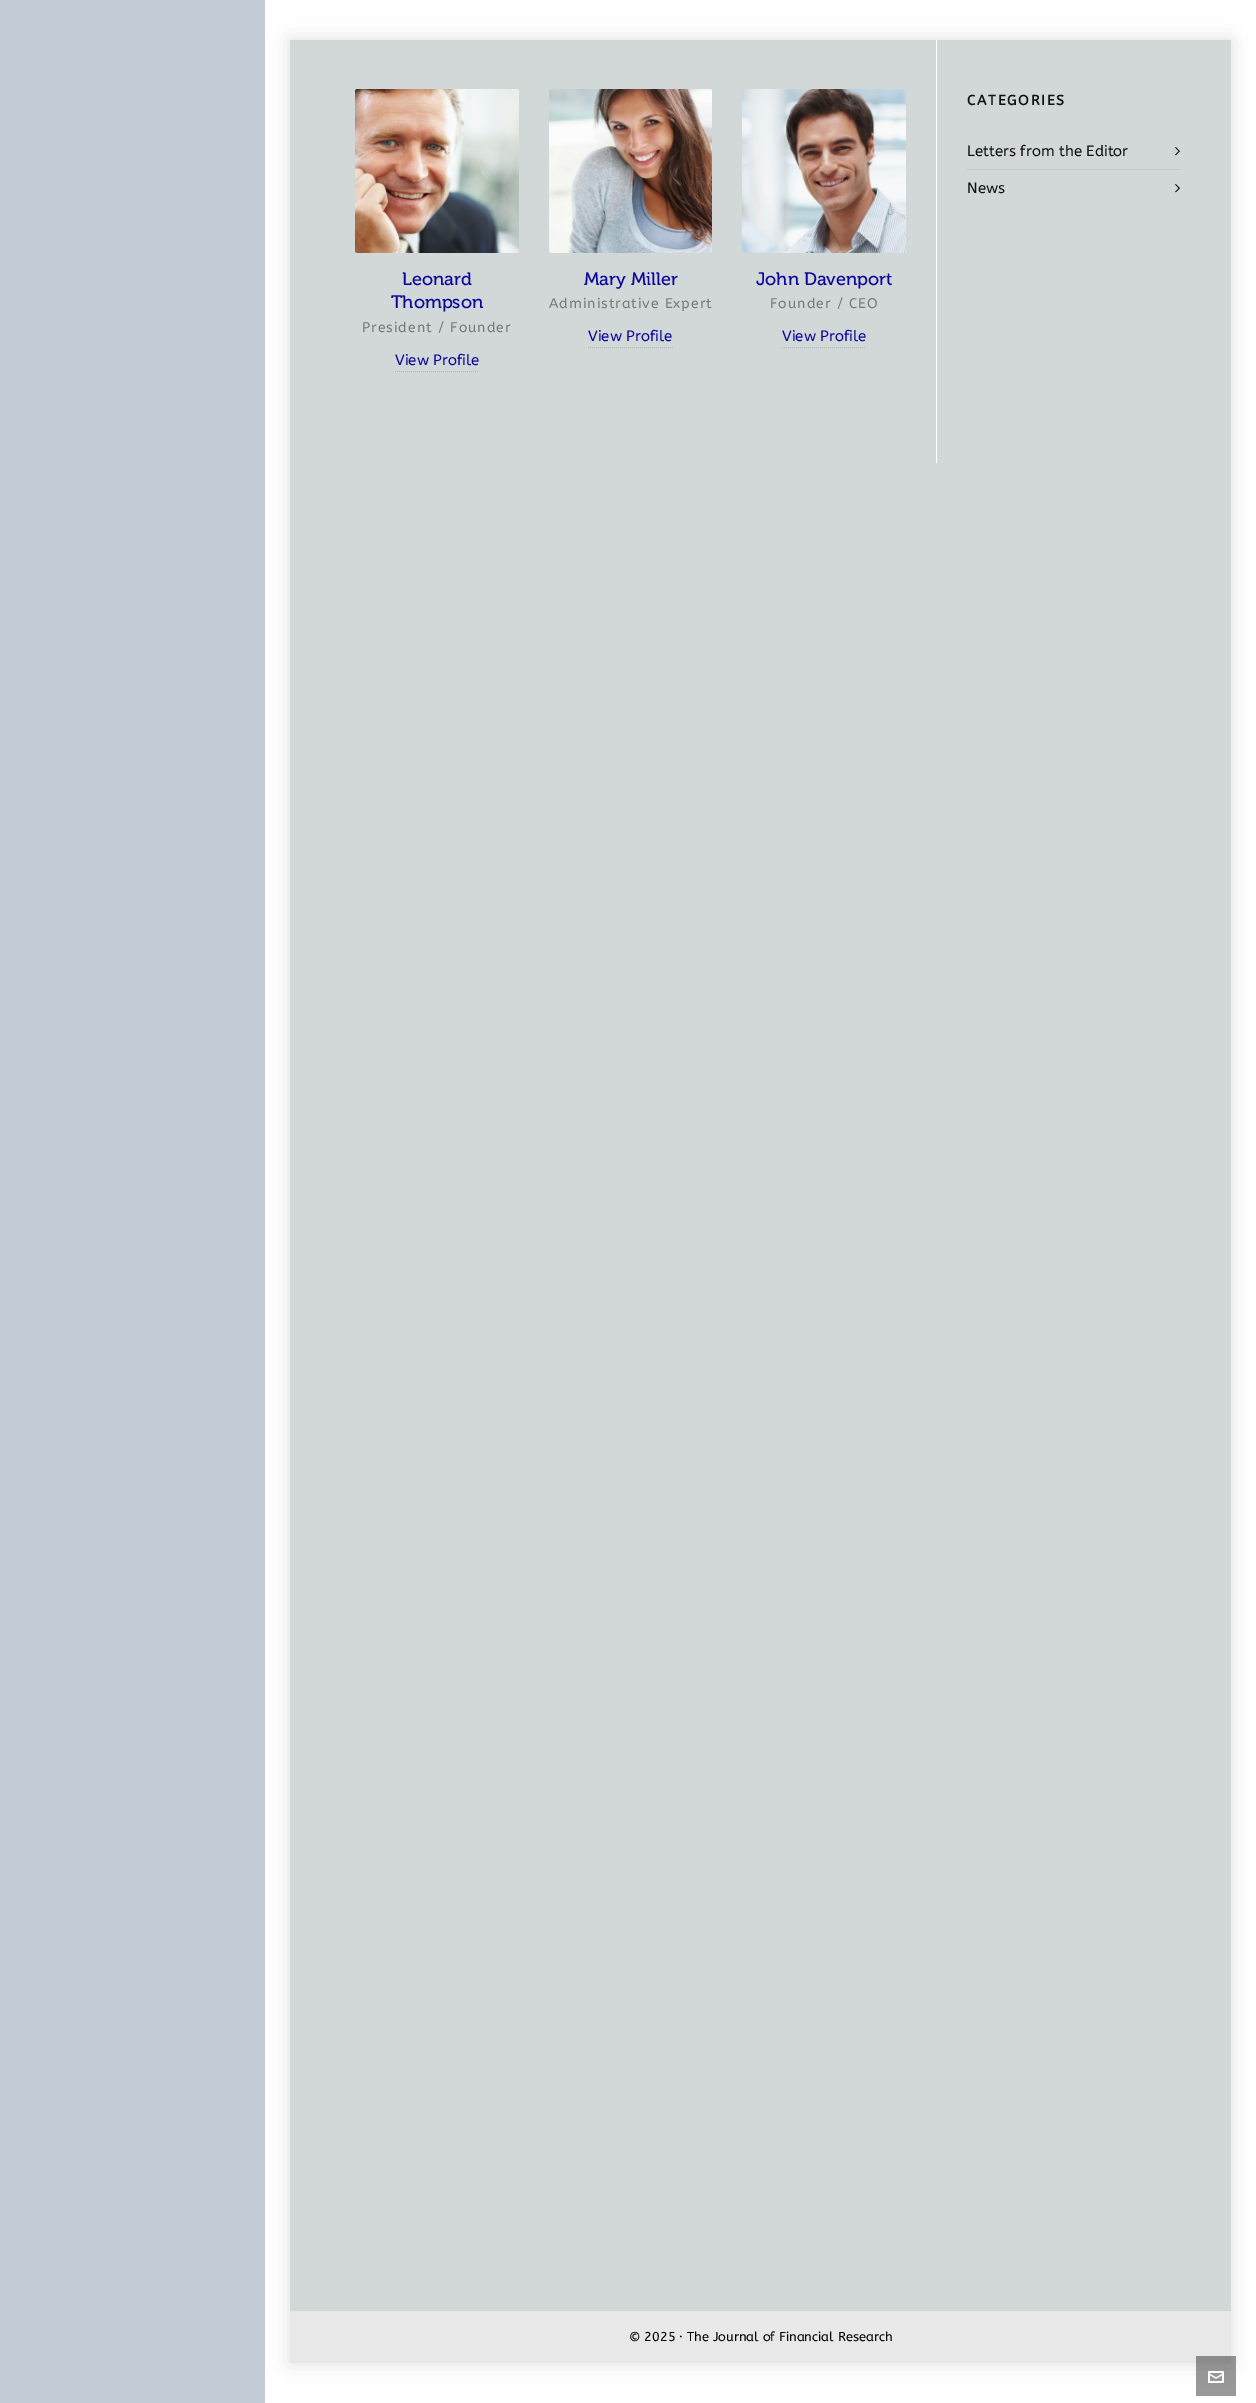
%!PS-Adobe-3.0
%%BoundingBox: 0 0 1256 2403
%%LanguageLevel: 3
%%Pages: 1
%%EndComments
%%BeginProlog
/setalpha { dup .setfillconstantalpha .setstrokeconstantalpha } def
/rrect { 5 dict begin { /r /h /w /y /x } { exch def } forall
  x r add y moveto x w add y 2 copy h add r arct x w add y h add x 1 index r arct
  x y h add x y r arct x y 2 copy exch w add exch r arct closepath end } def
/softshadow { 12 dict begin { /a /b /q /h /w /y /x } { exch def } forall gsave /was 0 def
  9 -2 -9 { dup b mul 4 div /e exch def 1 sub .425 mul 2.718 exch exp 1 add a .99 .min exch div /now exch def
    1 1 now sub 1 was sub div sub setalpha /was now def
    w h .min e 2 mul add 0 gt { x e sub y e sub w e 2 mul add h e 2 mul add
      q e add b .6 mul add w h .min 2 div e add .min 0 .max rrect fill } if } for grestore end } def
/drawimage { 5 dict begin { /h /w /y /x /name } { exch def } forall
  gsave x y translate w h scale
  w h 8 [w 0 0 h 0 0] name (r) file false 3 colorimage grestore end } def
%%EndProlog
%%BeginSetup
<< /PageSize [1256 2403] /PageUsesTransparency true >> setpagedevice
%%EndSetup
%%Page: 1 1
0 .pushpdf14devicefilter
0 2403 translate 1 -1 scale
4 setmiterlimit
1 setgray
0 0 1256 2403 rectfill
0.063 setgray
290 40 941 2323 0 10 0.13 softshadow
0.761 0.796 0.839 setrgbcolor
0 0 265 2403 rectfill
0.824 0.847 0.847 setrgbcolor
290 40 941 2271 rectfill
(images/1.raw) 1175 147 5 9 drawimage
0.765 0.788 0.788 setrgbcolor
967 169 213 1 rectfill
(images/1.raw) 1175 184 5 9 drawimage
1 setgray
936 40 1 423 rectfill
(images/2.raw) 355 89 164 164 drawimage
0.702 0.722 0.722 setrgbcolor
[1 1] 0 setdash
newpath 395 371.5 moveto 479 371.5 lineto stroke
(images/3.raw) 549 89 163 164 drawimage
newpath 588 347.5 moveto 673 347.5 lineto stroke
(images/4.raw) 742 89 164 164 drawimage
newpath 782 347.5 moveto 866 347.5 lineto stroke
0.91 setgray
290 2311 941 52 rectfill
0.4 setalpha
0 setgray
1196 2356 40 40 rectfill
1 setalpha
(images/5.raw) 1208 2371 16 12 drawimage
/ABeeZee-Bold [14 0 0 -14 0 0] selectfont
0.067 setgray
967 105 moveto 1.75 0 (CATEGORIES) ashow
/ABeeZee-Regular [15 0 0 -15 0 0] selectfont
967 156 moveto (Letters from the Editor) show
967 193 moveto (News) show
/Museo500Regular-Regular [18 0 0 -18 0 0] selectfont
0.051 0.024 0.608 setrgbcolor
402 285 moveto (Leonard) show
391 308 moveto (Thompson) show
/ABeeZee-Regular [14 0 0 -14 0 0] selectfont
0.467 setgray
362 332 moveto 1 0 (President / Founder) ashow
/ABeeZee-Regular [15 0 0 -15 0 0] selectfont
0.051 0.024 0.608 setrgbcolor
395 365 moveto (View Profile) show
/Museo500Regular-Regular [18 0 0 -18 0 0] selectfont
584 285 moveto (Mary Miller) show
/ABeeZee-Regular [14 0 0 -14 0 0] selectfont
0.467 setgray
549 308 moveto 1 0 (Administrative Expert) ashow
/ABeeZee-Regular [15 0 0 -15 0 0] selectfont
0.051 0.024 0.608 setrgbcolor
588 341 moveto (View Profile) show
/Museo500Regular-Regular [18 0 0 -18 0 0] selectfont
756 285 moveto (John Davenport) show
/ABeeZee-Regular [14 0 0 -14 0 0] selectfont
0.467 setgray
770 308 moveto 1 0 (Founder / CEO) ashow
/ABeeZee-Regular [15 0 0 -15 0 0] selectfont
0.051 0.024 0.608 setrgbcolor
782 341 moveto (View Profile) show
/ABeeZee-Regular [12.9 0 0 -12.9 0 0] selectfont
0 setgray
629 2341 moveto (© 2025 · The Journal of Financial Research) show
.poppdf14devicefilter showpage
%%EOF
